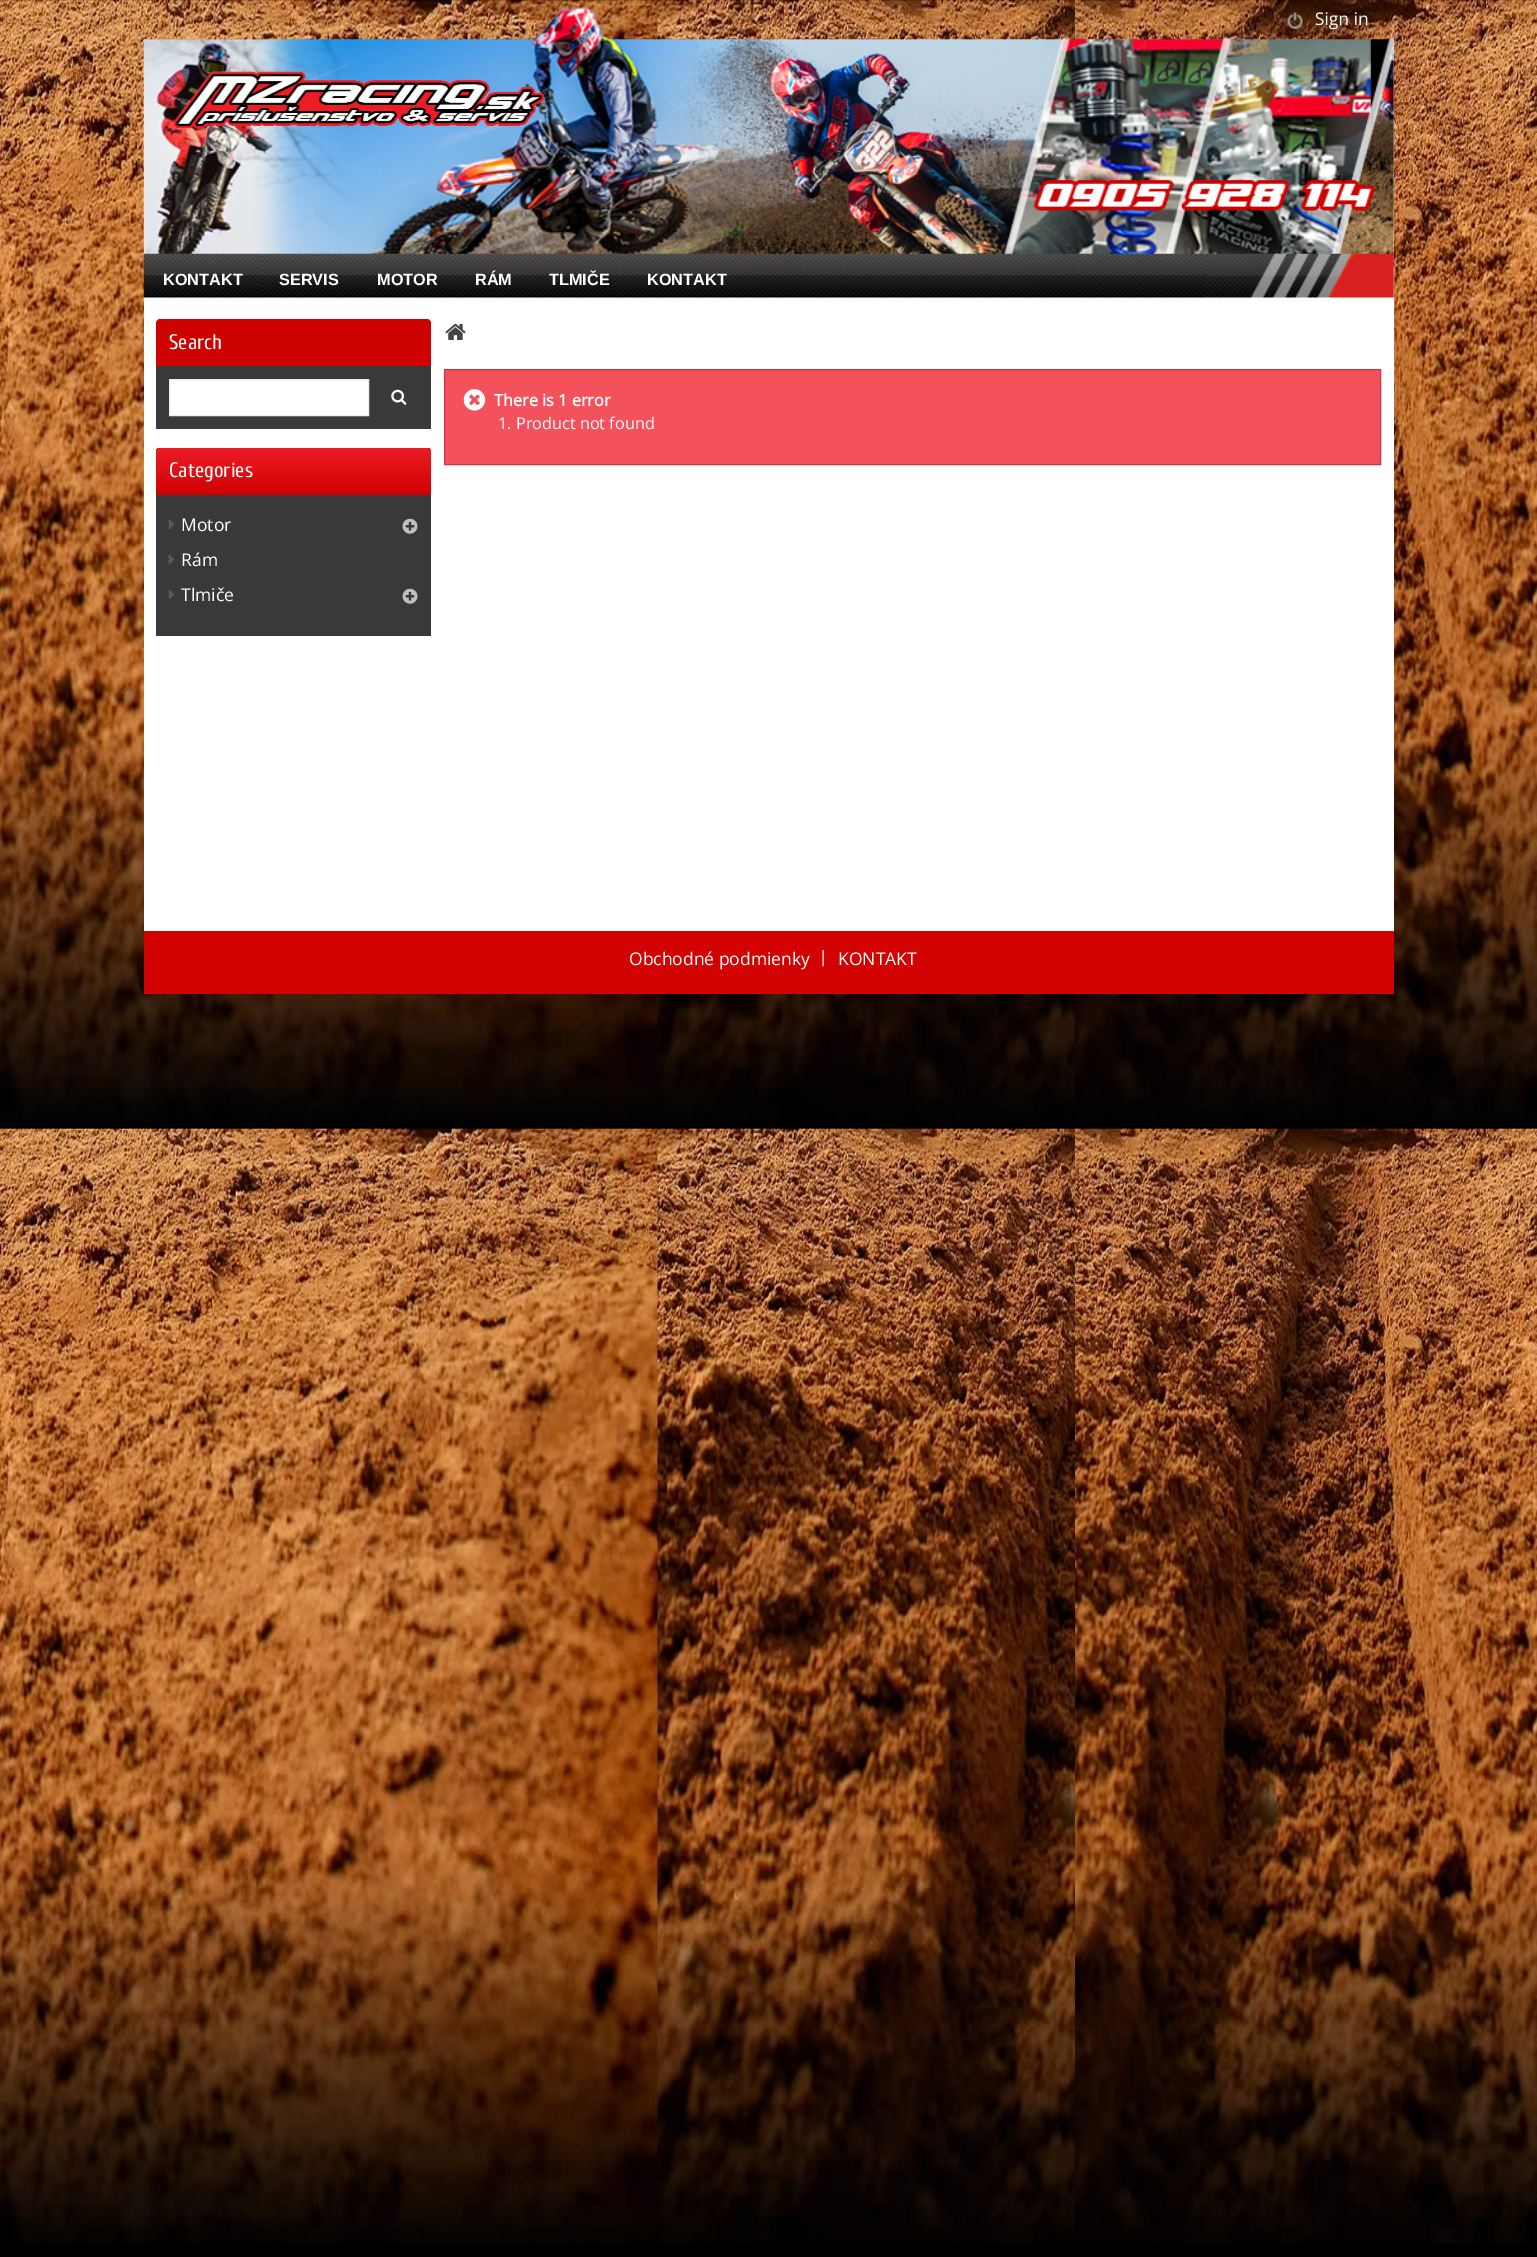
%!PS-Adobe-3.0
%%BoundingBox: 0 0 1537 2257
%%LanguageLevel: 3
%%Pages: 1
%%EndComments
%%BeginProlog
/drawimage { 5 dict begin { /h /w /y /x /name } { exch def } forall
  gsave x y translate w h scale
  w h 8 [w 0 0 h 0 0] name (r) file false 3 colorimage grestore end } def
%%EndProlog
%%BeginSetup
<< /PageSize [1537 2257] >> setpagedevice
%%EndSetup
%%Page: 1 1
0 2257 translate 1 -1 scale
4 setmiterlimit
0 setgray
0 0 1537 2257 rectfill
(images/1.raw) 0 0 1537 2244 drawimage
(images/2.raw) 1287 12 16 17 drawimage
1 setgray
144 40 1250 891 rectfill
0.812 0.008 0.008 setrgbcolor
newpath 160 319 moveto 427 319 lineto 429 319 431 321 431 323 curveto 431 366 lineto 156 366 lineto 156 323 lineto 156 321 158 319 160 319 curveto closepath fill
0.224 setgray
156 366 275 63 rectfill
1 setgray
newpath 169.5 379.5 moveto 368.5 379.5 lineto 368.5 415.5 lineto 169.5 415.5 lineto closepath gsave fill grestore
0.933 setgray
stroke
(images/6.raw) 391 389 16 16 drawimage
gsave newpath 160 448 moveto 427 448 lineto 429 448 431 450 431 452 curveto 431 495 lineto 156 495 lineto 156 452 lineto 156 450 158 448 160 448 curveto closepath clip newpath
<< /ShadingType 2 /ColorSpace /DeviceRGB /Coords [294 448 294 495] /Extend [true true] /Function << /FunctionType 2 /Domain [0 1] /C0 [0.933 0.11 0.145] /C1 [0.812 0.008 0.008] /N 1 >> >> shfill grestore
0.224 setgray
156 495 275 141 rectfill
(images/7.raw) 168 520 6 9 drawimage
(images/8.raw) 402 518 16 16 drawimage
(images/7.raw) 168 555 6 9 drawimage
(images/7.raw) 168 590 6 9 drawimage
(images/8.raw) 402 588 16 16 drawimage
(images/9.raw) 445 323 21 17 drawimage
0.953 0.318 0.361 setrgbcolor
newpath 444.5 369.5 moveto 1380.5 369.5 lineto 1380.5 464.5 lineto 444.5 464.5 lineto closepath gsave fill grestore
0.831 0.196 0.239 setrgbcolor
stroke
(images/10.raw) 463 389 23 22 drawimage
0.831 0.012 0.012 setrgbcolor
144 931 1250 63 rectfill
(images/11.raw) 822 950 2 17 drawimage
/OpenSans-Regular [17.5 0 0 -17.5 0 0] selectfont
1 setgray
1315 25 moveto (Sign in) show
(images/3.raw) 143 7 1251 260 drawimage
(images/4.raw) 172 71 373 58 drawimage
(images/5.raw) 143 253 1251 45 drawimage
/LiberationSans-Bold [16.25 0 0 -16.25 0 0] selectfont
163 285 moveto (KONTAKT) show
279 285 moveto (SERVIS) show
377 285 moveto (MOTOR) show
475 285 moveto (RÁM) show
549 285 moveto (TLMIČE) show
647 285 moveto (KONTAKT) show
/Cuprum-Regular [21 0 0 -21 0 0] selectfont
169 349 moveto (Search) show
169 477 moveto (Categories) show
/OpenSans-Regular [17.5 0 0 -17.5 0 0] selectfont
181 531 moveto (Motor) show
181 566 moveto (Rám) show
181 601 moveto (Tlmiče) show
/OpenSans-Bold [16.25 0 0 -16.25 0 0] selectfont
494 406 moveto (There is 1 error) show
/OpenSans-Regular [16.25 0 0 -16.25 0 0] selectfont
498 429 moveto (1. Product not found) show
/OpenSans-Regular [17.5 0 0 -17.5 0 0] selectfont
629 965 moveto (Obchodné podmienky) show
838 965 moveto (KONTAKT) show
showpage
%%EOF
